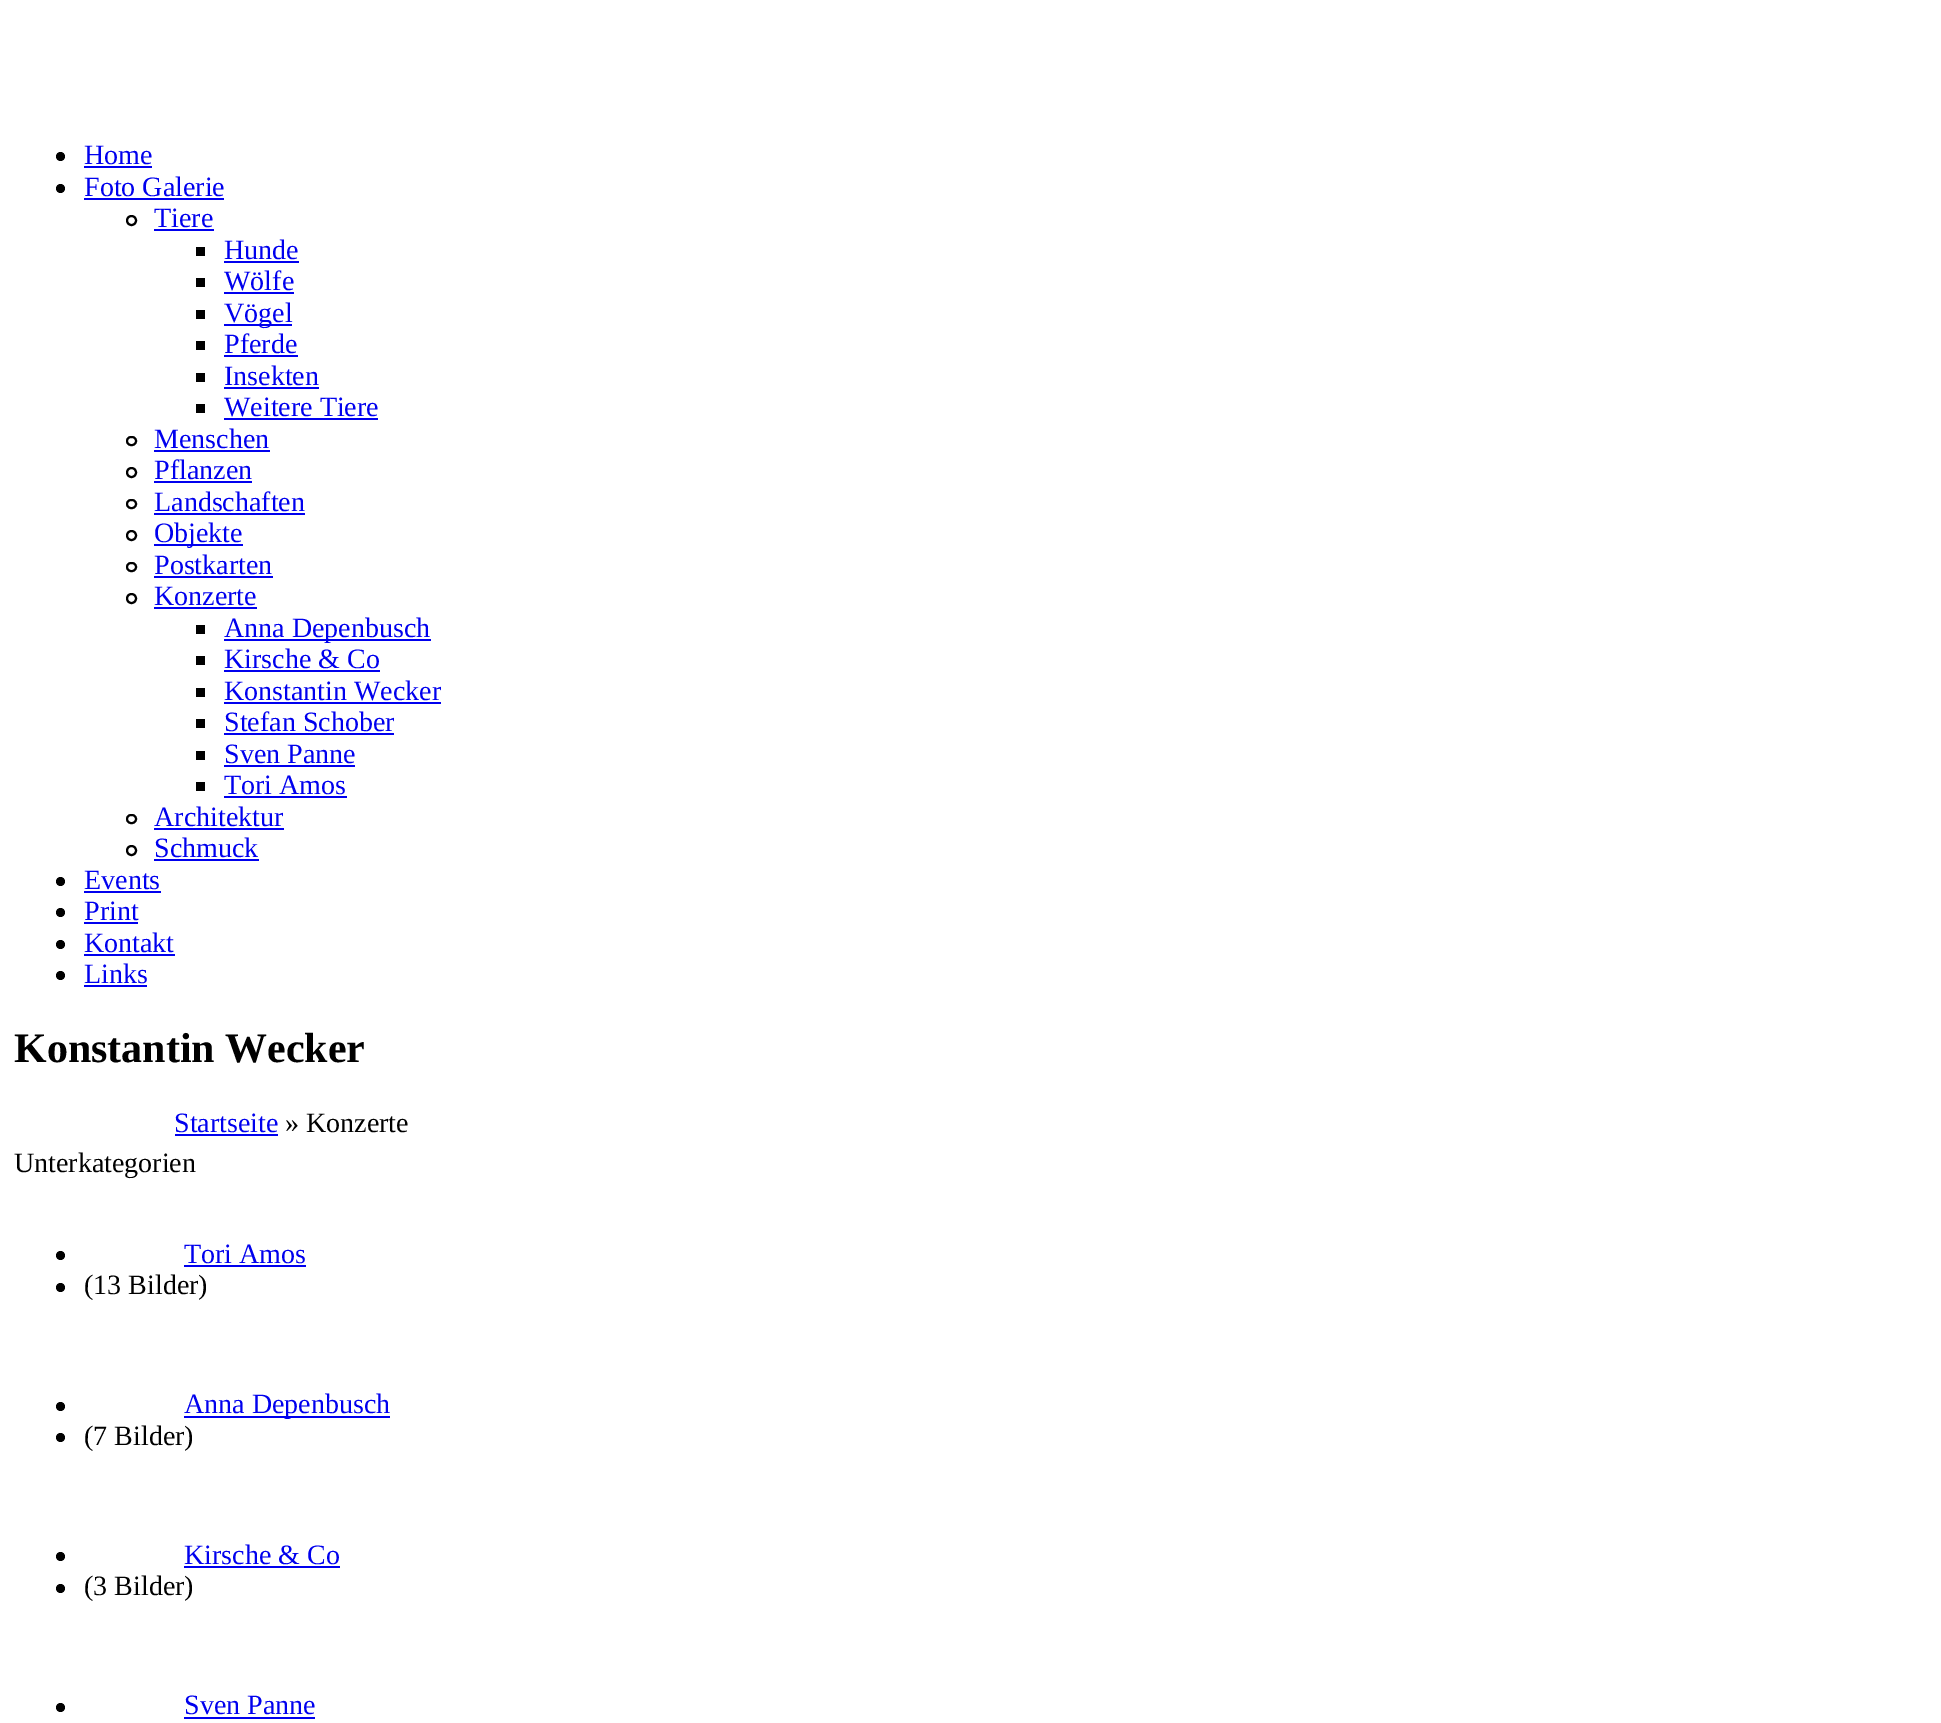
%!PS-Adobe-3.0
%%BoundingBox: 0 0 1941 1723
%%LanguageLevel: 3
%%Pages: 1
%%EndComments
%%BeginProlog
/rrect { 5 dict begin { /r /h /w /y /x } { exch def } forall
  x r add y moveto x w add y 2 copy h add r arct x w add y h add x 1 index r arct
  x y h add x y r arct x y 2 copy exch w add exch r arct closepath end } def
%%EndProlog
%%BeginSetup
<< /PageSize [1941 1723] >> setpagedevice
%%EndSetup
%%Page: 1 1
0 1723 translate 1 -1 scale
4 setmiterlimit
1 setgray
0 0 1941 1723 rectfill
0 setgray
newpath 60.5 156.5 4.5 0 360 arc closepath fill
0 0 0.933 setrgbcolor
84 166 68 2 rectfill
0 setgray
newpath 60.5 188.5 4.5 0 360 arc closepath fill
0 0 0.933 setrgbcolor
84 198 140 2 rectfill
0 setgray
2 setlinewidth
newpath 131.5 220.5 4.5 0 360 arc closepath stroke
0 0 0.933 setrgbcolor
154 229 60 2 rectfill
0 setgray
196 247 9 9 rectfill
0 0 0.933 setrgbcolor
224 261 75 2 rectfill
0 setgray
196 278 9 9 rectfill
0 0 0.933 setrgbcolor
224 292 70 2 rectfill
0 setgray
196 310 9 9 rectfill
0 0 0.933 setrgbcolor
224 324 68 2 rectfill
0 setgray
196 341 9 9 rectfill
0 0 0.933 setrgbcolor
224 355 74 2 rectfill
0 setgray
196 373 9 9 rectfill
0 0 0.933 setrgbcolor
224 387 95 2 rectfill
0 setgray
196 404 9 9 rectfill
0 0 0.933 setrgbcolor
224 418 154 2 rectfill
0 setgray
127 437 9 8 4 rrect stroke
0 0 0.933 setrgbcolor
154 450 116 2 rectfill
0 setgray
newpath 131.5 472.5 4.5 0 360 arc closepath stroke
0 0 0.933 setrgbcolor
154 481 98 2 rectfill
0 setgray
127 500 9 8 4 rrect stroke
0 0 0.933 setrgbcolor
154 513 151 2 rectfill
0 setgray
newpath 131.5 535.5 4.5 0 360 arc closepath stroke
0 0 0.933 setrgbcolor
154 544 89 2 rectfill
0 setgray
127 563 9 8 4 rrect stroke
0 0 0.933 setrgbcolor
154 576 119 2 rectfill
0 setgray
newpath 131.5 598.5 4.5 0 360 arc closepath stroke
0 0 0.933 setrgbcolor
154 607 103 2 rectfill
0 setgray
196 625 9 9 rectfill
0 0 0.933 setrgbcolor
224 639 207 2 rectfill
0 setgray
196 656 9 9 rectfill
0 0 0.933 setrgbcolor
224 670 156 2 rectfill
0 setgray
196 688 9 9 rectfill
0 0 0.933 setrgbcolor
224 702 217 2 rectfill
0 setgray
196 719 9 9 rectfill
0 0 0.933 setrgbcolor
224 733 170 2 rectfill
0 setgray
196 751 9 9 rectfill
0 0 0.933 setrgbcolor
224 765 131 2 rectfill
0 setgray
196 782 9 9 rectfill
0 0 0.933 setrgbcolor
224 796 123 2 rectfill
0 setgray
127 815 9 8 4 rrect stroke
0 0 0.933 setrgbcolor
154 828 130 2 rectfill
0 setgray
newpath 131.5 850.5 4.5 0 360 arc closepath stroke
0 0 0.933 setrgbcolor
154 859 105 2 rectfill
0 setgray
newpath 60.5 881.5 4.5 0 360 arc closepath fill
0 0 0.933 setrgbcolor
84 891 77 2 rectfill
0 setgray
newpath 60.5 912.5 4.5 0 360 arc closepath fill
0 0 0.933 setrgbcolor
84 922 54 2 rectfill
0 setgray
newpath 60.5 944.5 4.5 0 360 arc closepath fill
0 0 0.933 setrgbcolor
84 954 91 2 rectfill
0 setgray
newpath 60.5 975.5 4.5 0 360 arc closepath fill
0 0 0.933 setrgbcolor
84 985 63 2 rectfill
175 1134 103 2 rectfill
0 setgray
newpath 60.5 1255.5 4.5 0 360 arc closepath fill
0 0 0.933 setrgbcolor
184 1265 122 2 rectfill
0 setgray
newpath 60.5 1287.5 4.5 0 360 arc closepath fill
newpath 60.5 1406.5 4.5 0 360 arc closepath fill
0 0 0.933 setrgbcolor
184 1416 206 2 rectfill
0 setgray
newpath 60.5 1437.5 4.5 0 360 arc closepath fill
newpath 60.5 1556.5 4.5 0 360 arc closepath fill
0 0 0.933 setrgbcolor
184 1566 156 2 rectfill
0 setgray
newpath 60.5 1588.5 4.5 0 360 arc closepath fill
newpath 60.5 1707.5 4.5 0 360 arc closepath fill
0 0 0.933 setrgbcolor
184 1717 131 2 rectfill
/LiberationSerif-Regular [28 0 0 -28 0 0] selectfont
84 164 moveto (Home) show
84 196 moveto (Foto Galerie) show
154 227 moveto (Tiere) show
224 259 moveto (Hunde) show
224 290 moveto (Wölfe) show
224 322 moveto (Vögel) show
224 353 moveto (Pferde) show
224 385 moveto (Insekten) show
224 416 moveto (Weitere Tiere) show
154 448 moveto (Menschen) show
154 479 moveto (Pflanzen) show
154 511 moveto (Landschaften) show
154 542 moveto (Objekte) show
154 574 moveto (Postkarten) show
154 605 moveto (Konzerte) show
224 637 moveto (Anna Depenbusch) show
224 668 moveto (Kirsche & Co) show
224 700 moveto (Konstantin Wecker) show
224 731 moveto (Stefan Schober) show
224 763 moveto (Sven Panne) show
224 794 moveto (Tori Amos) show
154 826 moveto (Architektur) show
154 857 moveto (Schmuck) show
84 889 moveto (Events) show
84 920 moveto (Print) show
84 952 moveto (Kontakt) show
84 983 moveto (Links) show
/LiberationSerif-Bold [42 0 0 -42 0 0] selectfont
0 setgray
14 1062 moveto (Konstantin Wecker) show
/LiberationSerif-Regular [28 0 0 -28 0 0] selectfont
0 0 0.933 setrgbcolor
174 1132 moveto (Startseite) show
0 setgray
285 1132 moveto (» Konzerte) show
14 1172 moveto (Unterkategorien) show
0 0 0.933 setrgbcolor
184 1263 moveto (Tori Amos) show
0 setgray
84 1294 moveto (\(13 Bilder\)) show
0 0 0.933 setrgbcolor
184 1413 moveto (Anna Depenbusch) show
0 setgray
84 1445 moveto (\(7 Bilder\)) show
0 0 0.933 setrgbcolor
184 1564 moveto (Kirsche & Co) show
0 setgray
84 1595 moveto (\(3 Bilder\)) show
0 0 0.933 setrgbcolor
184 1714 moveto (Sven Panne) show
showpage
%%EOF
